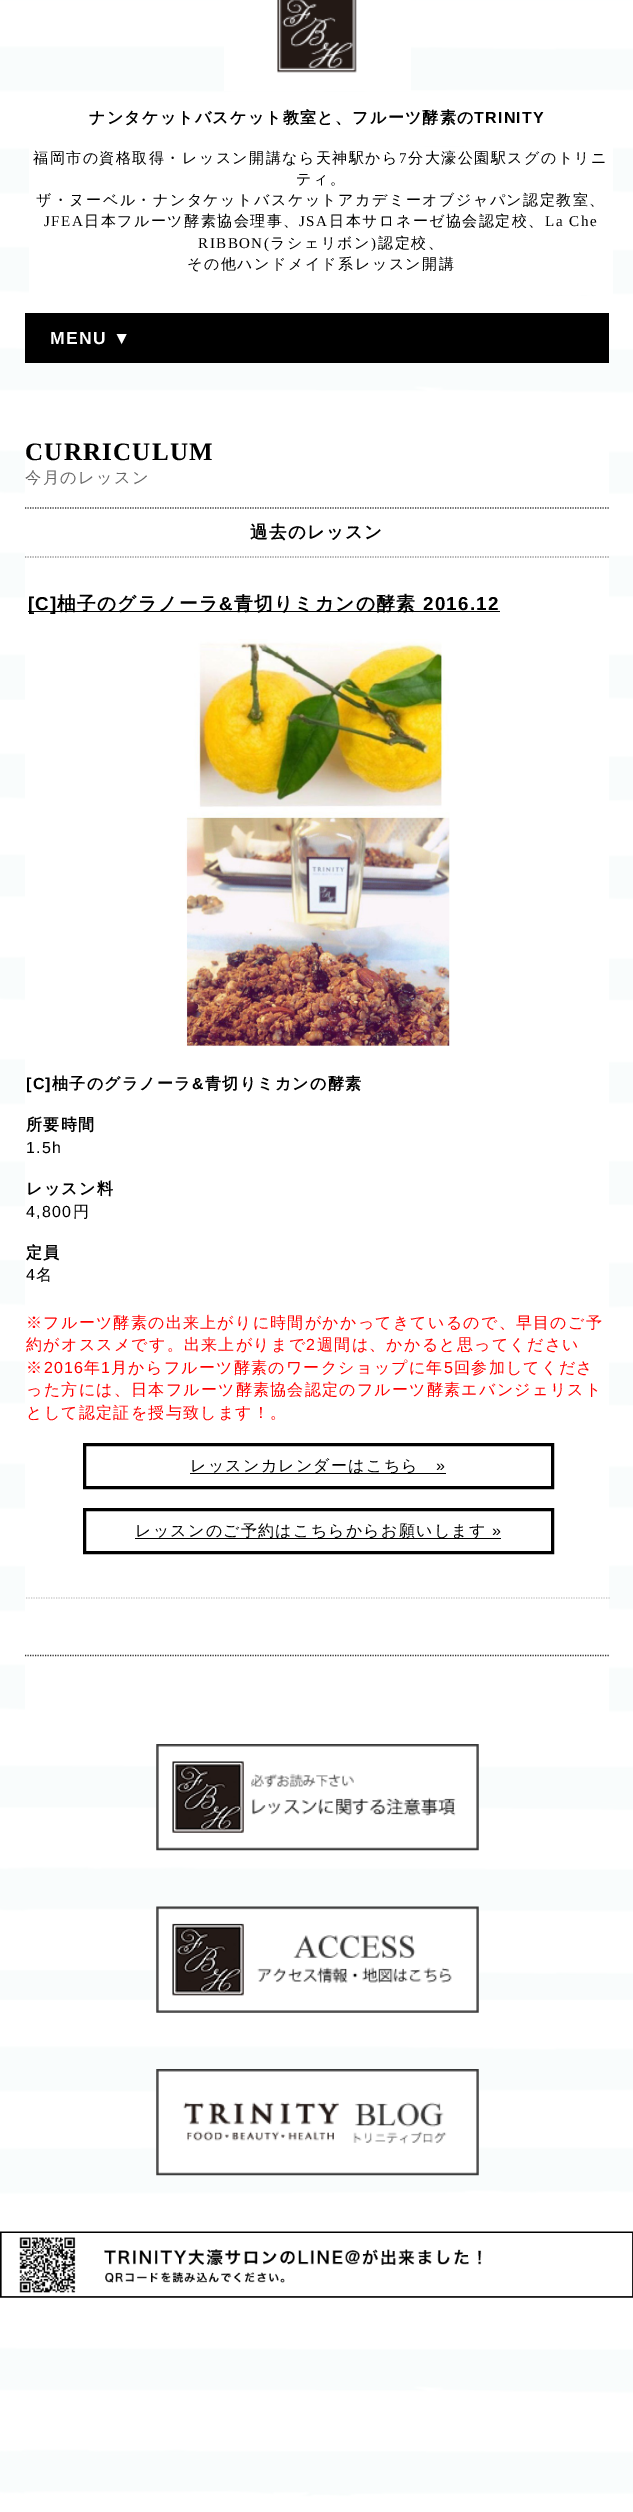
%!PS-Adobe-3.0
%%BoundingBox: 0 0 633 2512
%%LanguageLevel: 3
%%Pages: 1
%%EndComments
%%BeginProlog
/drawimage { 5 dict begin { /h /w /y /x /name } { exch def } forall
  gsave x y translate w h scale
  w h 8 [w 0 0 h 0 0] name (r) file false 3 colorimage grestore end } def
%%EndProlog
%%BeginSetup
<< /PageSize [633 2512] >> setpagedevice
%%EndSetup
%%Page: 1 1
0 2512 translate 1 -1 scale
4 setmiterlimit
1 setgray
0 0 633 2512 rectfill
(images/1.raw) 0 0 633 2512 drawimage
(images/2.raw) 224 0 187 91 drawimage
29 147 584 148 rectfill
0 setgray
25 313 584 50 rectfill
1 setgray
25 450 584 1263 rectfill
0.204 setgray
1.2 setlinewidth
[1.25 1.25] 0 setdash
newpath 25 1655.5 moveto 609 1655.5 lineto stroke
newpath 25 508 moveto 609 508 lineto stroke
0.58 setgray
newpath 25 557 moveto 609 557 lineto stroke
0 setgray
28 611 472 1 rectfill
(images/3.raw) 185 639 265 408 drawimage
0.8 setgray
newpath 26 1598 moveto 610 1598 lineto stroke
0 setgray
3 setlinewidth
[] 0 setdash
84.5 1444.5 468 43 rectstroke
190 1473 256 1 rectfill
84.5 1509.5 468 43 rectstroke
135 1538 366 1 rectfill
(images/4.raw) 156 1744 323 107 drawimage
(images/5.raw) 156 1906 323 107 drawimage
(images/6.raw) 156 2069 323 107 drawimage
(images/7.raw) 0 2231 633 67 drawimage
/WenQuanYiZenHei-Bold [16 0 0 -16 0 0] selectfont
89 123 moveto 1.25 0 (ナンタケットバスケット教室と、フルーツ酵素の) ashow
/LiberationSans-Bold [16 0 0 -16 0 0] selectfont
474 123 moveto 1.25 0 (TRINITY) ashow
/WenQuanYiZenHei-Medium [15 0 0 -15 0 0] selectfont
33 163 moveto 1.5 0 (福岡市の資格取得・レッスン開講なら天神駅から) ashow
/LiberationSerif-Regular [15 0 0 -15 0 0] selectfont
399 163 moveto 1.5 0 (7) ashow
/WenQuanYiZenHei-Medium [15 0 0 -15 0 0] selectfont
408 163 moveto 1.5 0 (分大濠公園駅スグのトリニ) ashow
296 184 moveto 1.5 0 (ティ。) ashow
36 205 moveto 1.5 0 (ザ・ヌーベル・ナンタケットバスケットアカデミーオブジャパン認定教室、) ashow
/LiberationSerif-Regular [15 0 0 -15 0 0] selectfont
44 226 moveto 1.5 0 (JFEA) ashow
/WenQuanYiZenHei-Medium [15 0 0 -15 0 0] selectfont
84 226 moveto 1.5 0 (日本フルーツ酵素協会理事、) ashow
/LiberationSerif-Regular [15 0 0 -15 0 0] selectfont
299 226 moveto 1.5 0 (JSA) ashow
/WenQuanYiZenHei-Medium [15 0 0 -15 0 0] selectfont
329 226 moveto 1.5 0 (日本サロネーゼ協会認定校、) ashow
/LiberationSerif-Regular [15 0 0 -15 0 0] selectfont
545 226 moveto 1.5 0 (La Che) ashow
198 248 moveto 1.5 0 (RIBBON\() ashow
/WenQuanYiZenHei-Medium [15 0 0 -15 0 0] selectfont
270 248 moveto 1.5 0 (ラシェリボン) ashow
/LiberationSerif-Regular [15 0 0 -15 0 0] selectfont
371 248 moveto 1.5 0 (\)) ashow
/WenQuanYiZenHei-Medium [15 0 0 -15 0 0] selectfont
378 248 moveto 1.5 0 (認定校、) ashow
187 269 moveto 1.5 0 (その他ハンドメイド系レッスン開講) ashow
/LiberationSans-Bold [17.5 0 0 -17.5 0 0] selectfont
1 setgray
50 344 moveto 1.25 0 (MENU ▼) ashow
/LiberationSerif-Bold [25 0 0 -25 0 0] selectfont
0 setgray
25 460 moveto 1.25 0 (CURRICULUM) ashow
/WenQuanYiZenHei-Medium [16.25 0 0 -16.25 0 0] selectfont
0.4 setgray
25 483 moveto 1.25 0 (今月のレッスン) ashow
/WenQuanYiZenHei-Bold [17.5 0 0 -17.5 0 0] selectfont
0 setgray
250 538 moveto 1.25 0 (過去のレッスン) ashow
/LiberationSans-Bold [18.75 0 0 -18.75 0 0] selectfont
28 610 moveto 1.25 0 ([C]) ashow
/WenQuanYiZenHei-Bold [18.75 0 0 -18.75 0 0] selectfont
57 610 moveto 1.25 0 (柚子のグラノーラ) ashow
/LiberationSans-Bold [18.75 0 0 -18.75 0 0] selectfont
219 610 moveto 1.25 0 (&) ashow
/WenQuanYiZenHei-Bold [18.75 0 0 -18.75 0 0] selectfont
234 610 moveto 1.25 0 (青切りミカンの酵素) ashow
/LiberationSans-Bold [18.75 0 0 -18.75 0 0] selectfont
423 610 moveto 1.25 0 (2016.12) ashow
/LiberationSans-Bold [16 0 0 -16 0 0] selectfont
26 1089 moveto 1.25 0 ([C]) ashow
/WenQuanYiZenHei-Bold [16 0 0 -16 0 0] selectfont
52 1089 moveto 1.25 0 (柚子のグラノーラ) ashow
/LiberationSans-Bold [16 0 0 -16 0 0] selectfont
192 1089 moveto 1.25 0 (&) ashow
/WenQuanYiZenHei-Bold [16 0 0 -16 0 0] selectfont
205 1089 moveto 1.25 0 (青切りミカンの酵素) ashow
26 1130 moveto 1.25 0 (所要時間) ashow
/LiberationSans-Regular [16 0 0 -16 0 0] selectfont
26 1153 moveto 1.25 0 (1.5h) ashow
/WenQuanYiZenHei-Bold [16 0 0 -16 0 0] selectfont
26 1194 moveto 1.25 0 (レッスン料) ashow
/LiberationSans-Regular [16 0 0 -16 0 0] selectfont
26 1217 moveto 1.25 0 (4,800) ashow
/WenQuanYiZenHei-Medium [16 0 0 -16 0 0] selectfont
73 1217 moveto 1.25 0 (円) ashow
/WenQuanYiZenHei-Bold [16 0 0 -16 0 0] selectfont
26 1258 moveto 1.25 0 (定員) ashow
/LiberationSans-Regular [16 0 0 -16 0 0] selectfont
26 1280 moveto 1.25 0 (4) ashow
/WenQuanYiZenHei-Medium [16 0 0 -16 0 0] selectfont
36 1280 moveto 1.25 0 (名) ashow
1 0 0 setrgbcolor
26 1328 moveto 1.25 0 (※フルーツ酵素の出来上がりに時間がかかってきているので、早目のご予) ashow
26 1350 moveto 1.25 0 (約がオススメです。出来上がりまで) ashow
/LiberationSans-Regular [16 0 0 -16 0 0] selectfont
306 1350 moveto 1.25 0 (2) ashow
/WenQuanYiZenHei-Medium [16 0 0 -16 0 0] selectfont
317 1350 moveto 1.25 0 (週間は、かかると思ってください) ashow
26 1373 moveto 1.25 0 (※) ashow
/LiberationSans-Regular [16 0 0 -16 0 0] selectfont
44 1373 moveto 1.25 0 (2016) ashow
/WenQuanYiZenHei-Medium [16 0 0 -16 0 0] selectfont
84 1373 moveto 1.25 0 (年) ashow
/LiberationSans-Regular [16 0 0 -16 0 0] selectfont
101 1373 moveto 1.25 0 (1) ashow
/WenQuanYiZenHei-Medium [16 0 0 -16 0 0] selectfont
111 1373 moveto 1.25 0 (月からフルーツ酵素のワークショップに年) ashow
/LiberationSans-Regular [16 0 0 -16 0 0] selectfont
444 1373 moveto 1.25 0 (5) ashow
/WenQuanYiZenHei-Medium [16 0 0 -16 0 0] selectfont
454 1373 moveto 1.25 0 (回参加してくださ) ashow
26 1395 moveto 1.25 0 (った方には、日本フルーツ酵素協会認定のフルーツ酵素エバンジェリスト) ashow
26 1418 moveto 1.25 0 (として認定証を授与致します！。) ashow
0 setgray
190 1471 moveto 1.25 0 (レッスンカレンダーはこちら) ashow
/LiberationSans-Regular [16 0 0 -16 0 0] selectfont
436 1471 moveto 1.25 0 (») ashow
/WenQuanYiZenHei-Medium [16 0 0 -16 0 0] selectfont
135 1536 moveto 1.25 0 (レッスンのご予約はこちらからお願いします) ashow
/LiberationSans-Regular [16 0 0 -16 0 0] selectfont
492 1536 moveto 1.25 0 (») ashow
showpage
%%EOF
